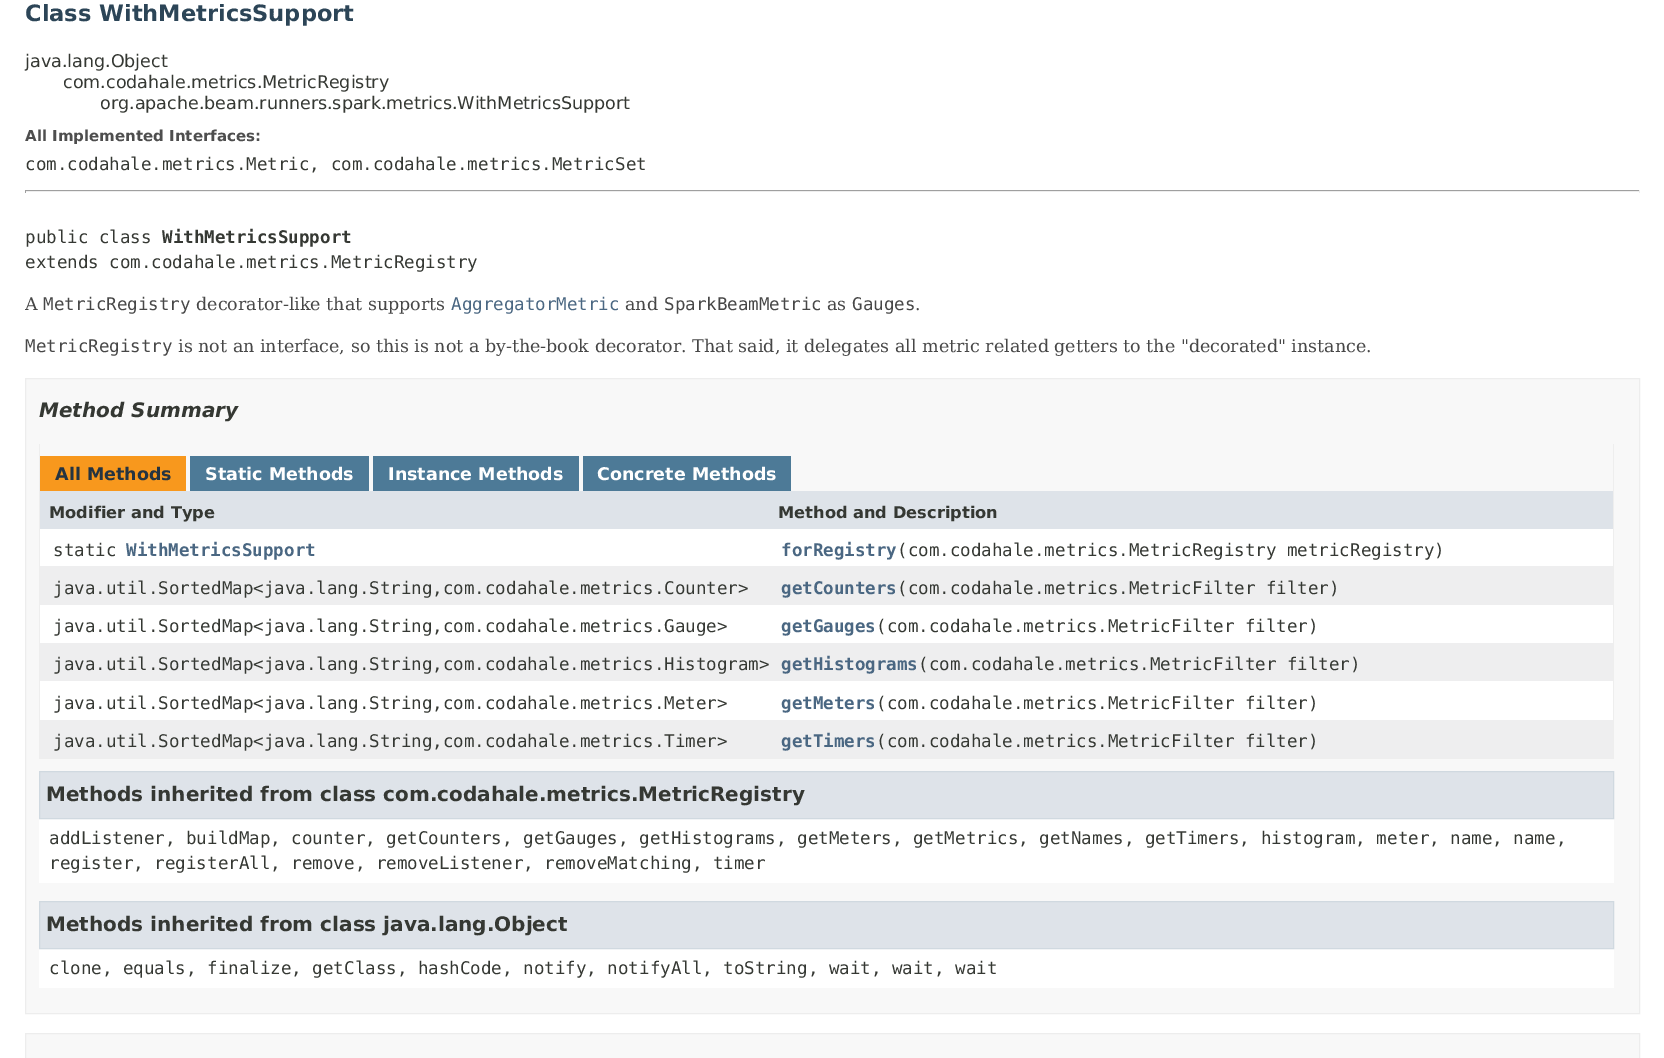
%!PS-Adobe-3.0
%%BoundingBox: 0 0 1664 1058
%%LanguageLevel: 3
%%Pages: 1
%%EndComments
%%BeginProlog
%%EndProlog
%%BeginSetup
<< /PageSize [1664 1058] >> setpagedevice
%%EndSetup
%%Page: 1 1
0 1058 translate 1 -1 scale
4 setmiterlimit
1 setgray
0 0 1664 1058 rectfill
0.624 setgray
25 190 1615 1 rectfill
0.933 setgray
1639 190 1 3 rectfill
25 191 1615 1 rectfill
0.624 setgray
25 190 1 3 rectfill
0.973 setgray
newpath 25.5 378.5 moveto 1639.5 378.5 lineto 1639.5 1013.5 lineto 25.5 1013.5 lineto closepath gsave fill grestore
0.929 setgray
stroke
0.933 setgray
1613 444 1 315 rectfill
39 758 1575 1 rectfill
39 444 1 315 rectfill
0.973 0.596 0.114 setrgbcolor
40 456 146 35 rectfill
0.302 0.478 0.592 setrgbcolor
190 456 179 35 rectfill
373 456 206 35 rectfill
583 456 208 35 rectfill
0.871 0.89 0.914 setrgbcolor
40 491 1573 38 rectfill
1 setgray
40 529 1573 37 rectfill
0.933 0.933 0.937 setrgbcolor
40 566 1573 39 rectfill
1 setgray
40 605 1573 38 rectfill
0.933 0.933 0.937 setrgbcolor
40 643 1573 38 rectfill
1 setgray
40 681 1573 39 rectfill
0.933 0.933 0.937 setrgbcolor
40 720 1573 38 rectfill
1 setgray
39 819 1575 64 rectfill
0.871 0.89 0.914 setrgbcolor
newpath 39.5 771.5 moveto 1613.5 771.5 lineto 1613.5 818.5 lineto 39.5 818.5 lineto closepath gsave fill grestore
0.816 0.851 0.878 setrgbcolor
stroke
1 setgray
39 949 1575 39 rectfill
0.871 0.89 0.914 setrgbcolor
newpath 39.5 901.5 moveto 1613.5 901.5 lineto 1613.5 948.5 lineto 39.5 948.5 lineto closepath gsave fill grestore
0.816 0.851 0.878 setrgbcolor
stroke
0.973 setgray
newpath 25.5 1033.5 moveto 1639.5 1033.5 lineto 1639.5 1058.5 lineto 25.5 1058.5 lineto closepath gsave fill grestore
0.929 setgray
stroke
/DejaVuSans-Bold [22.5 0 0 -22.5 0 0] selectfont
0.173 0.271 0.341 setrgbcolor
25 21 moveto (Class WithMetricsSupport) show
/DejaVuSans-Regular [17.5 0 0 -17.5 0 0] selectfont
0.208 0.22 0.2 setrgbcolor
25 67 moveto (java.lang.Object) show
63 88 moveto (com.codahale.metrics.MetricRegistry) show
100 109 moveto (org.apache.beam.runners.spark.metrics.WithMetricsSupport) show
/DejaVuSans-Bold [15 0 0 -15 0 0] selectfont
0.306 setgray
25 141 moveto (All Implemented Interfaces:) show
/DejaVuSansMono-Regular [17.5 0 0 -17.5 0 0] selectfont
0.208 0.22 0.2 setrgbcolor
25 170 moveto (com.codahale.metrics.Metric, com.codahale.metrics.MetricSet) show
25 243 moveto (public class) show
/DejaVuSansMono-Bold [17.5 0 0 -17.5 0 0] selectfont
162 243 moveto (WithMetricsSupport) show
/DejaVuSansMono-Regular [17.5 0 0 -17.5 0 0] selectfont
25 268 moveto (extends com.codahale.metrics.MetricRegistry) show
/DejaVuSerif-Regular [17.5 0 0 -17.5 0 0] selectfont
0.278 setgray
25 310 moveto (A) show
/DejaVuSansMono-Regular [17.5 0 0 -17.5 0 0] selectfont
43 310 moveto (MetricRegistry) show
/DejaVuSerif-Regular [17.5 0 0 -17.5 0 0] selectfont
196 310 moveto (decorator-like that supports) show
/DejaVuSansMono-Regular [17.5 0 0 -17.5 0 0] selectfont
0.29 0.404 0.51 setrgbcolor
451 310 moveto (AggregatorMetric) show
/DejaVuSerif-Regular [17.5 0 0 -17.5 0 0] selectfont
0.278 setgray
625 310 moveto (and) show
/DejaVuSansMono-Regular [17.5 0 0 -17.5 0 0] selectfont
664 310 moveto (SparkBeamMetric) show
/DejaVuSerif-Regular [17.5 0 0 -17.5 0 0] selectfont
827 310 moveto (as) show
/DejaVuSansMono-Regular [17.5 0 0 -17.5 0 0] selectfont
852 310 moveto (Gauges) show
/DejaVuSerif-Regular [17.5 0 0 -17.5 0 0] selectfont
915 310 moveto (.) show
/DejaVuSansMono-Regular [17.5 0 0 -17.5 0 0] selectfont
25 352 moveto (MetricRegistry) show
/DejaVuSerif-Regular [17.5 0 0 -17.5 0 0] selectfont
178 352 moveto (is not an interface, so this is not a by-the-book decorator. That said, it delegates all metric related getters to the "decorated" instance.) show
/DejaVuSans-BoldItalic [20 0 0 -20 0 0] selectfont
0.208 0.22 0.2 setrgbcolor
39 417 moveto (Method Summary) show
/DejaVuSans-Bold [17.5 0 0 -17.5 0 0] selectfont
0.145 0.204 0.255 setrgbcolor
55 480 moveto (All Methods) show
1 setgray
205 480 moveto (Static Methods) show
388 480 moveto (Instance Methods) show
597 480 moveto (Concrete Methods) show
/DejaVuSans-Bold [16.25 0 0 -16.25 0 0] selectfont
0.208 0.22 0.2 setrgbcolor
49 518 moveto (Modifier and Type) show
778 518 moveto (Method and Description) show
/DejaVuSansMono-Regular [17.5 0 0 -17.5 0 0] selectfont
53 556 moveto (static) show
/DejaVuSansMono-Bold [17.5 0 0 -17.5 0 0] selectfont
0.29 0.404 0.51 setrgbcolor
126 556 moveto (WithMetricsSupport) show
781 556 moveto (forRegistry) show
/DejaVuSansMono-Regular [17.5 0 0 -17.5 0 0] selectfont
0.208 0.22 0.2 setrgbcolor
897 556 moveto (\(com.codahale.metrics.MetricRegistry metricRegistry\)) show
53 594 moveto (java.util.SortedMap<java.lang.String,com.codahale.metrics.Counter>) show
/DejaVuSansMono-Bold [17.5 0 0 -17.5 0 0] selectfont
0.29 0.404 0.51 setrgbcolor
781 594 moveto (getCounters) show
/DejaVuSansMono-Regular [17.5 0 0 -17.5 0 0] selectfont
0.208 0.22 0.2 setrgbcolor
897 594 moveto (\(com.codahale.metrics.MetricFilter filter\)) show
53 632 moveto (java.util.SortedMap<java.lang.String,com.codahale.metrics.Gauge>) show
/DejaVuSansMono-Bold [17.5 0 0 -17.5 0 0] selectfont
0.29 0.404 0.51 setrgbcolor
781 632 moveto (getGauges) show
/DejaVuSansMono-Regular [17.5 0 0 -17.5 0 0] selectfont
0.208 0.22 0.2 setrgbcolor
876 632 moveto (\(com.codahale.metrics.MetricFilter filter\)) show
53 670 moveto (java.util.SortedMap<java.lang.String,com.codahale.metrics.Histogram>) show
/DejaVuSansMono-Bold [17.5 0 0 -17.5 0 0] selectfont
0.29 0.404 0.51 setrgbcolor
781 670 moveto (getHistograms) show
/DejaVuSansMono-Regular [17.5 0 0 -17.5 0 0] selectfont
0.208 0.22 0.2 setrgbcolor
918 670 moveto (\(com.codahale.metrics.MetricFilter filter\)) show
53 709 moveto (java.util.SortedMap<java.lang.String,com.codahale.metrics.Meter>) show
/DejaVuSansMono-Bold [17.5 0 0 -17.5 0 0] selectfont
0.29 0.404 0.51 setrgbcolor
781 709 moveto (getMeters) show
/DejaVuSansMono-Regular [17.5 0 0 -17.5 0 0] selectfont
0.208 0.22 0.2 setrgbcolor
876 709 moveto (\(com.codahale.metrics.MetricFilter filter\)) show
53 747 moveto (java.util.SortedMap<java.lang.String,com.codahale.metrics.Timer>) show
/DejaVuSansMono-Bold [17.5 0 0 -17.5 0 0] selectfont
0.29 0.404 0.51 setrgbcolor
781 747 moveto (getTimers) show
/DejaVuSansMono-Regular [17.5 0 0 -17.5 0 0] selectfont
0.208 0.22 0.2 setrgbcolor
876 747 moveto (\(com.codahale.metrics.MetricFilter filter\)) show
/DejaVuSans-Bold [20 0 0 -20 0 0] selectfont
46 801 moveto (Methods inherited from class com.codahale.metrics.MetricRegistry) show
/DejaVuSansMono-Regular [17.5 0 0 -17.5 0 0] selectfont
49 844 moveto (addListener, buildMap, counter, getCounters, getGauges, getHistograms, getMeters, getMetrics, getNames, getTimers, histogram, meter, name, name,) show
49 869 moveto (register, registerAll, remove, removeListener, removeMatching, timer) show
/DejaVuSans-Bold [20 0 0 -20 0 0] selectfont
46 931 moveto (Methods inherited from class java.lang.Object) show
/DejaVuSansMono-Regular [17.5 0 0 -17.5 0 0] selectfont
49 974 moveto (clone, equals, finalize, getClass, hashCode, notify, notifyAll, toString, wait, wait, wait) show
showpage
%%EOF
